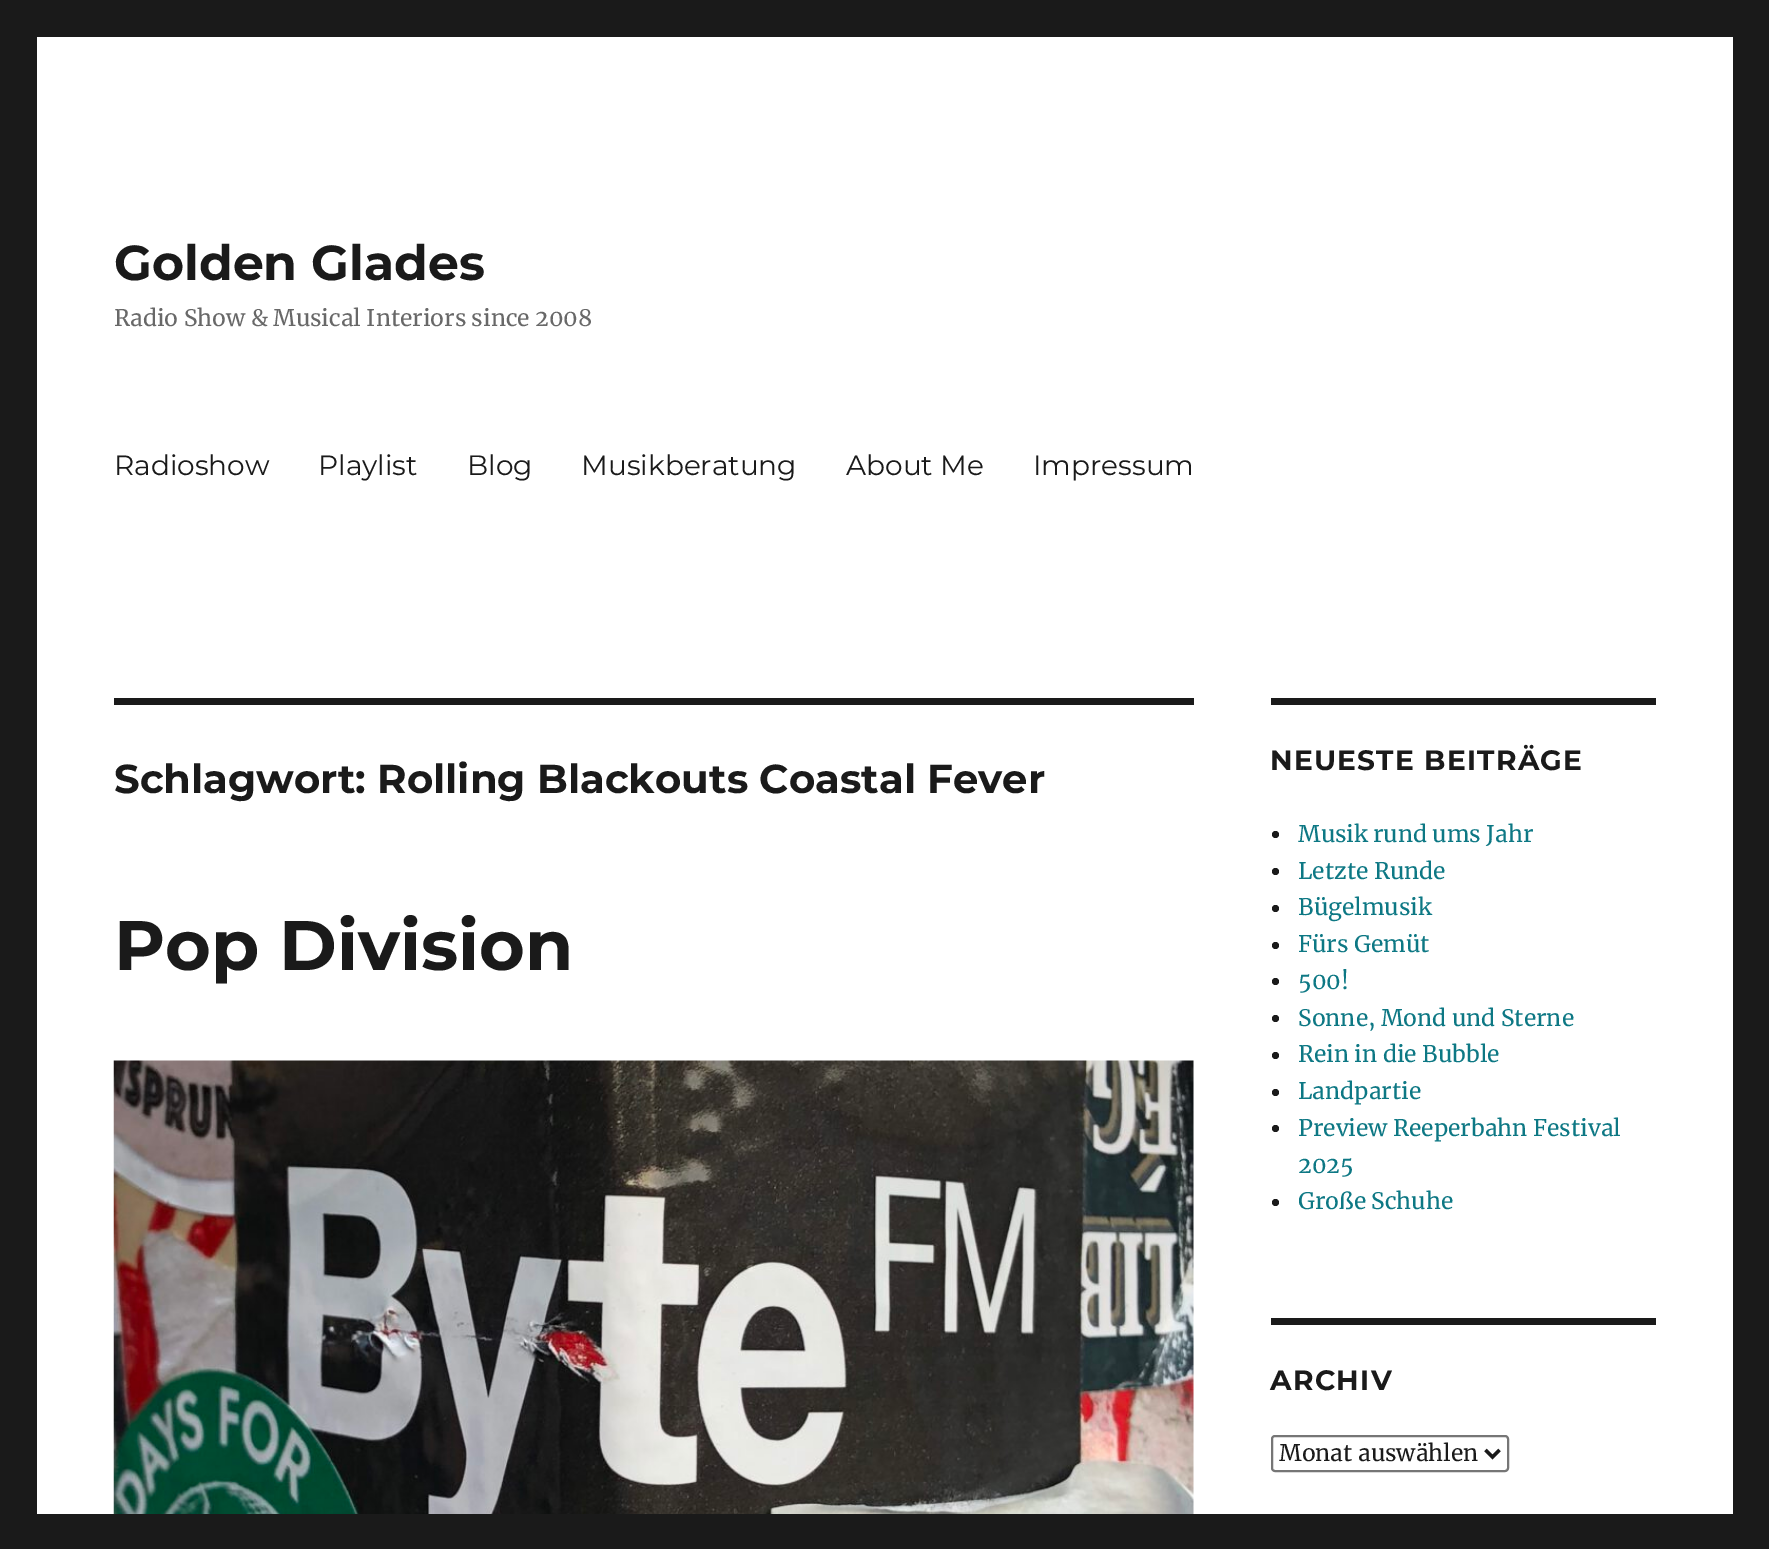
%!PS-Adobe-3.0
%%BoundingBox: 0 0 1769 1549
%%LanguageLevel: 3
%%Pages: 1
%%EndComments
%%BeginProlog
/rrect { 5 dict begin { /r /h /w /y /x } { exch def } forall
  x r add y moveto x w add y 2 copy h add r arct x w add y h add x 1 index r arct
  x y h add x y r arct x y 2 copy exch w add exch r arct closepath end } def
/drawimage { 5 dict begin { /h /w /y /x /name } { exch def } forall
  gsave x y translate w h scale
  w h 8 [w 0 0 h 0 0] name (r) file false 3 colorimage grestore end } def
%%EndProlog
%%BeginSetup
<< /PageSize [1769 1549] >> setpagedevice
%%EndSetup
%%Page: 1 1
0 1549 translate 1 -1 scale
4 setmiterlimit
0.102 setgray
0 0 1769 1549 rectfill
1 setgray
37 37 1696 1477 rectfill
0.102 setgray
114 698 1080 7 rectfill
(images/1.raw) 113 1060 1081 454 drawimage
1271 698 385 7 rectfill
newpath 1275.5 834.5 3.5 0 360 arc closepath fill
newpath 1275.5 871.5 3.5 0 360 arc closepath fill
newpath 1275.5 908.5 3.5 0 360 arc closepath fill
newpath 1275.5 945.5 3.5 0 360 arc closepath fill
newpath 1275.5 981.5 3.5 0 360 arc closepath fill
newpath 1275.5 1018.5 3.5 0 360 arc closepath fill
newpath 1275.5 1055.5 3.5 0 360 arc closepath fill
newpath 1275.5 1092.5 3.5 0 360 arc closepath fill
newpath 1275.5 1128.5 3.5 0 360 arc closepath fill
newpath 1275.5 1202.5 3.5 0 360 arc closepath fill
1271 1318 385 7 rectfill
0.463 setgray
2 setlinewidth
1272 1436 236 35 3 rrect stroke
0.102 setgray
3.5 setlinewidth
newpath 1485.5 1450 moveto 1492.5 1457 lineto 1499.5 1450 lineto stroke
/Montserrat-Thin [49 0 0 -49 0 0] selectfont
114 280 moveto (Golden Glades) show
/Merriweather-Regular [22.75 0 0 -22.75 0 0] selectfont
0.408 setgray
114 326 moveto (Radio Show & Musical Interiors since 2008) show
/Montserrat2-Thin [28 0 0 -28 0 0] selectfont
0.102 setgray
114 475 moveto (Radioshow) show
318 475 moveto (Playlist) show
467 475 moveto (Blog) show
581 475 moveto (Musikberatung) show
846 475 moveto (About Me) show
1033 475 moveto (Impressum) show
/Montserrat-Thin [40.25 0 0 -40.25 0 0] selectfont
114 793 moveto (Schlagwort: Rolling Blackouts Coastal Fever) show
/Montserrat-Thin [70 0 0 -70 0 0] selectfont
114 970 moveto (Pop Division) show
/Montserrat-Thin [28 0 0 -28 0 0] selectfont
1270 770 moveto 1.25 0 (NEUESTE BEITRÄGE) ashow
/Merriweather-Regular [22.75 0 0 -22.75 0 0] selectfont
0.051 0.471 0.518 setrgbcolor
1298 842 moveto (Musik rund ums Jahr) show
1298 879 moveto (Letzte Runde) show
1298 915 moveto (Bügelmusik) show
1298 952 moveto (Fürs Gemüt) show
1298 989 moveto (500!) show
1298 1026 moveto (Sonne, Mond und Sterne) show
1298 1062 moveto (Rein in die Bubble) show
1298 1099 moveto (Landpartie) show
1298 1136 moveto (Preview Reeperbahn Festival) show
1298 1173 moveto (2025) show
1298 1209 moveto (Große Schuhe) show
/Montserrat-Thin [28 0 0 -28 0 0] selectfont
0.102 setgray
1270 1390 moveto 1.25 0 (ARCHIV) ashow
/Merriweather-Regular [22.75 0 0 -22.75 0 0] selectfont
1279 1461 moveto (Monat auswählen) show
showpage
%%EOF
